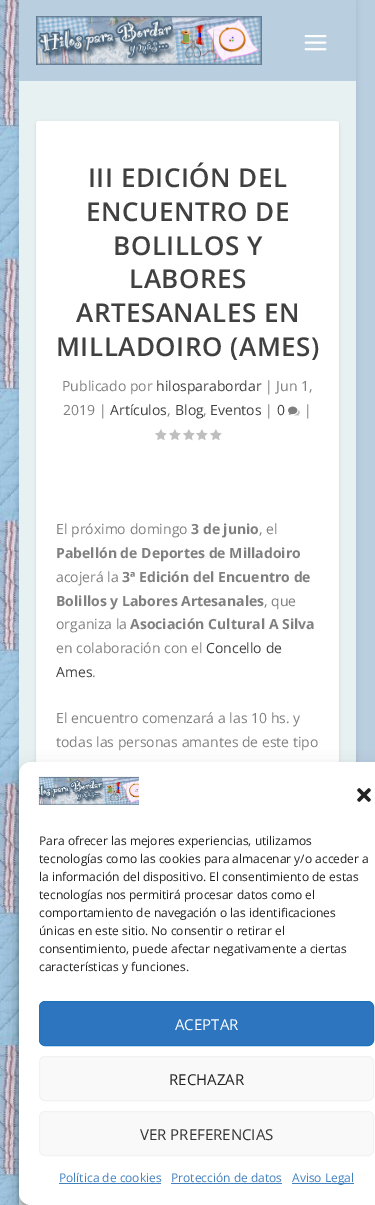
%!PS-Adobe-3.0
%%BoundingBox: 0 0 375 1205
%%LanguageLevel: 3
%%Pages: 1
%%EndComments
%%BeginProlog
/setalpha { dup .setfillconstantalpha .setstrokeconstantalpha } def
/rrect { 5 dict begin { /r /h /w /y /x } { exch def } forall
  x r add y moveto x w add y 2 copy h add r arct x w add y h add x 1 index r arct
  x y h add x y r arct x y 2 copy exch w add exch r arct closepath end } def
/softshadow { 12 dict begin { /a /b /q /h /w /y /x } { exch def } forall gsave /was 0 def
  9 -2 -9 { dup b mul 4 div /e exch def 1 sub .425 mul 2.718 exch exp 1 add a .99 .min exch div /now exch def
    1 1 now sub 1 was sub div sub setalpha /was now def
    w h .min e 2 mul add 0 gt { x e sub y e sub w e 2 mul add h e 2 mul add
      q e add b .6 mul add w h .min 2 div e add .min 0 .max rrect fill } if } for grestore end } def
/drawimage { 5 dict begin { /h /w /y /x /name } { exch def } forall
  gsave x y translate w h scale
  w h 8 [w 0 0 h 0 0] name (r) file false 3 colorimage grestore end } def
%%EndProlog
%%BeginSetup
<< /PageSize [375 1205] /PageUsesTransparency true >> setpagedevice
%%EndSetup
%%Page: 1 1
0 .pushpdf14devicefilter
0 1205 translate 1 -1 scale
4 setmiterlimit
1 setgray
0 0 375 1205 rectfill
(images/1.raw) 0 0 375 1205 drawimage
0 setgray
19 1 337 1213 0 3 0.1 softshadow
0.91 0.945 0.949 setrgbcolor
19 81 337 1124 rectfill
0.725 0.808 0.875 setrgbcolor
19 0 337 81 rectfill
(images/2.raw) 36 16 226 49 drawimage
(images/3.raw) 304 35 23 16 drawimage
0 setgray
36 122 303 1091 3 1.5 0.1 softshadow
1 setgray
36 121 303 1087 3 rrect fill
(images/4.raw) 288 406 12 10 drawimage
(images/5.raw) 155 429 12 12 drawimage
(images/5.raw) 169 429 12 12 drawimage
(images/5.raw) 183 429 12 12 drawimage
(images/5.raw) 196 429 12 12 drawimage
(images/5.raw) 210 429 12 12 drawimage
0 setgray
19 768 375 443 12 3 0.23 softshadow
19 772 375 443 12 10 0.19 softshadow
1 setgray
19 762 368 443 12 rrect fill
(images/6.raw) 38 776 101 29 drawimage
(images/7.raw) 357 788 14 14 drawimage
0.176 0.463 0.749 setrgbcolor
39.5 1001.5 334 44 5.5 rrect gsave fill grestore
0.118 0.451 0.745 setrgbcolor
stroke
0.976 setgray
39.5 1056.5 334 44 5.5 rrect gsave fill grestore
0.949 setgray
stroke
0.976 setgray
39.5 1111.5 334 44 5.5 rrect gsave fill grestore
0.949 setgray
stroke
0.255 0.502 0.749 setrgbcolor
59 1183 102 1 rectfill
171 1183 111 1 rectfill
292 1183 62 1 rectfill
/OpenSans-SemiBold [26 0 0 -26 0 0] selectfont
0.251 setgray
88 187 moveto 0.5 0 (III EDICIÓN DEL) ashow
86 221 moveto 0.5 0 (ENCUENTRO DE) ashow
113 255 moveto 0.5 0 (BOLILLOS Y) ashow
129 288 moveto 0.5 0 (LABORES) ashow
76 322 moveto 0.5 0 (ARTESANALES EN) ashow
56 356 moveto 0.5 0 (MILLADOIRO \(AMES\)) ashow
/OpenSans-Regular [14 0 0 -14 0 0] selectfont
0.502 setgray
62 391 moveto (Publicado por) show
0.251 setgray
156 391 moveto (hilosparabordar) show
0.502 setgray
265 391 moveto (| Jun 1,) show
63 415 moveto (2019 |) show
0.251 setgray
110 415 moveto (Artículos) show
0.502 setgray
167 415 moveto (,) show
0.251 setgray
175 415 moveto (Blog) show
0.502 setgray
203 415 moveto (,) show
0.251 setgray
210 415 moveto (Eventos) show
0.502 setgray
265 415 moveto (|) show
0.251 setgray
277 415 moveto (0) show
0.502 setgray
304 415 moveto (|) show
56 534 moveto (El próximo domingo) show
/OpenSans-Bold [14 0 0 -14 0 0] selectfont
191 534 moveto (3 de junio) show
/OpenSans-Regular [14 0 0 -14 0 0] selectfont
259 534 moveto (, el) show
/OpenSans-Bold [14 0 0 -14 0 0] selectfont
56 558 moveto (Pabellón de Deportes de Milladoiro) show
/OpenSans-Regular [14 0 0 -14 0 0] selectfont
56 582 moveto (acojerá la) show
/OpenSans-Bold [14 0 0 -14 0 0] selectfont
122 582 moveto (3ª Edición del Encuentro de) show
56 606 moveto (Bolillos y Labores Artesanales) show
/OpenSans-Regular [14 0 0 -14 0 0] selectfont
264 606 moveto (, que) show
56 629 moveto (organiza la) show
/OpenSans-Bold [14 0 0 -14 0 0] selectfont
130 629 moveto (Asociación Cultural A Silva) show
/OpenSans-Regular [14 0 0 -14 0 0] selectfont
56 653 moveto (en colaboración con el) show
0.251 setgray
206 653 moveto (Concello de) show
56 677 moveto (Ames) show
0.502 setgray
92 677 moveto (.) show
56 723 moveto (El encuentro comenzará a las 10 hs. y) show
56 747 moveto (todas las personas amantes de este tipo) show
/OpenSans-Regular [12 0 0 -12 0 0] selectfont
0.133 setgray
39 845 moveto (Para ofrecer las mejores experiencias, utilizamos) show
39 863 moveto (tecnologías como las cookies para almacenar y/o acceder a) show
39 881 moveto (la información del dispositivo. El consentimiento de estas) show
39 899 moveto (tecnologías nos permitirá procesar datos como el) show
39 917 moveto (comportamiento de navegación o las identificaciones) show
39 935 moveto (únicas en este sitio. No consentir o retirar el) show
39 953 moveto (consentimiento, puede afectar negativamente a ciertas) show
39 971 moveto (características y funciones.) show
/OpenSans-Regular [15 0 0 -15 0 0] selectfont
1 setgray
175 1030 moveto (ACEPTAR) show
0.133 setgray
169 1085 moveto (RECHAZAR) show
0.2 setgray
140 1140 moveto (VER PREFERENCIAS) show
/OpenSans-Regular [12 0 0 -12 0 0] selectfont
0.255 0.502 0.749 setrgbcolor
59 1182 moveto (Política de cookies) show
171 1182 moveto (Protección de datos) show
292 1182 moveto (Aviso Legal) show
.poppdf14devicefilter showpage
%%EOF
